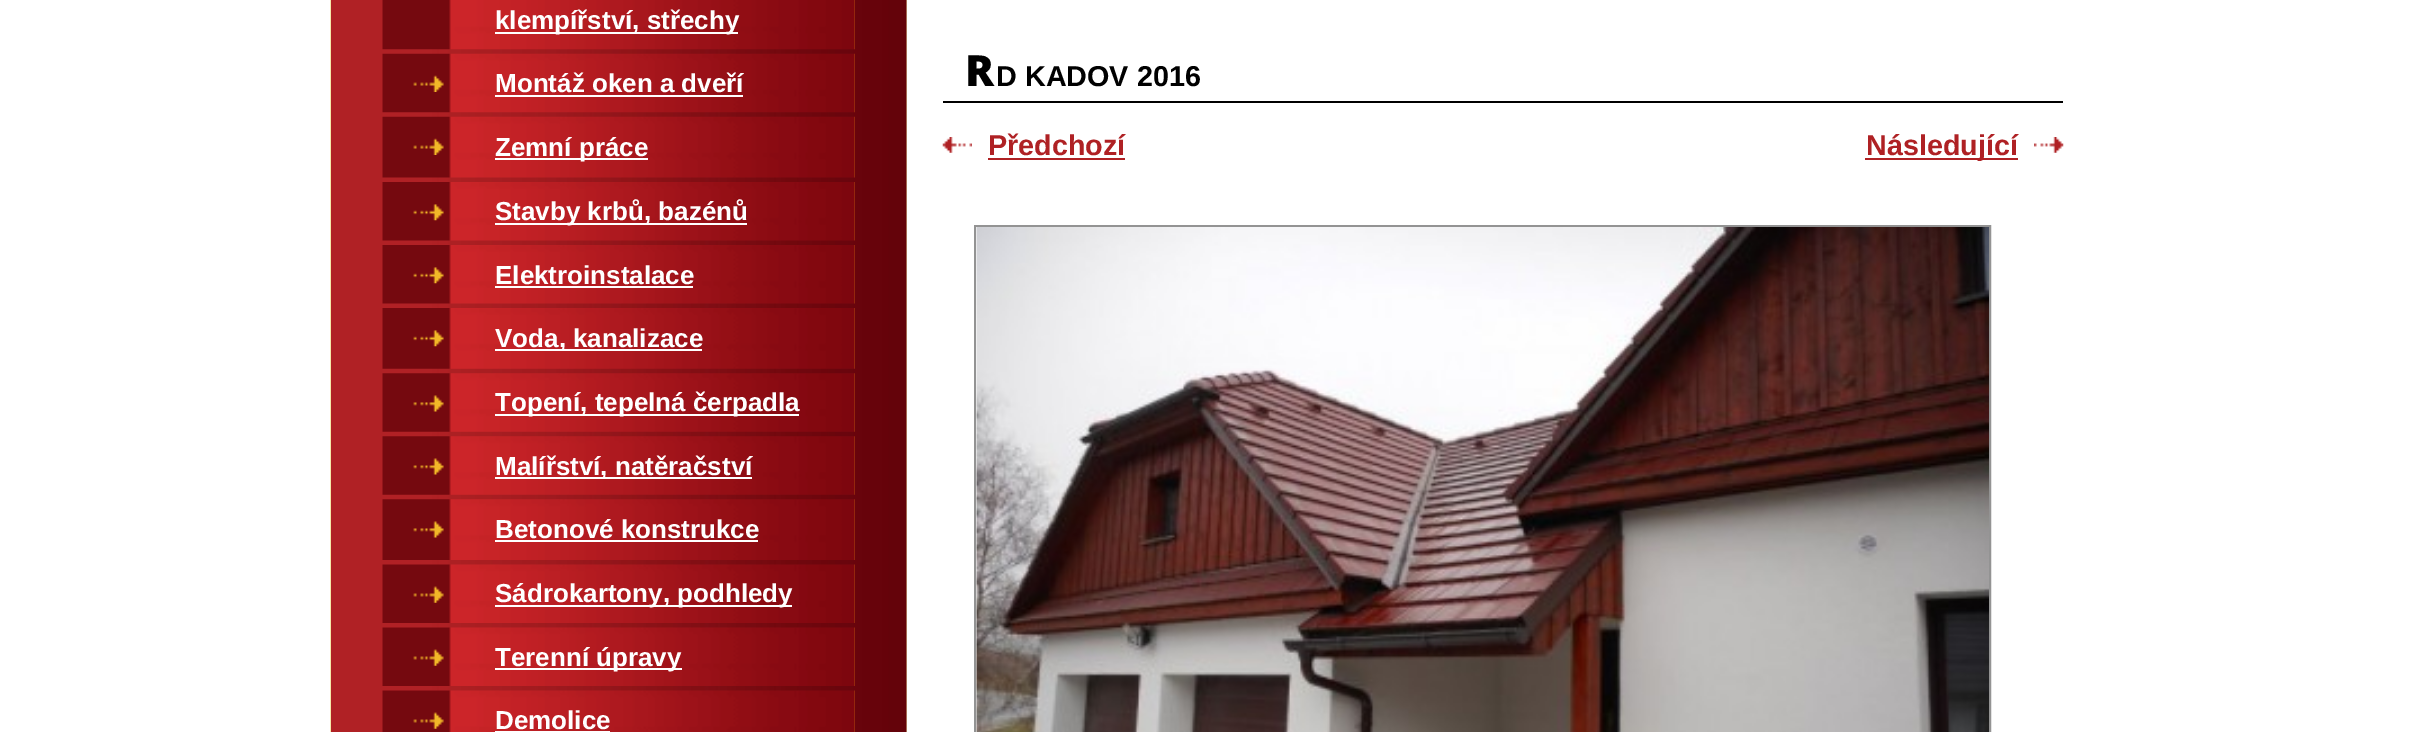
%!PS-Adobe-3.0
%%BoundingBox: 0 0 2416 732
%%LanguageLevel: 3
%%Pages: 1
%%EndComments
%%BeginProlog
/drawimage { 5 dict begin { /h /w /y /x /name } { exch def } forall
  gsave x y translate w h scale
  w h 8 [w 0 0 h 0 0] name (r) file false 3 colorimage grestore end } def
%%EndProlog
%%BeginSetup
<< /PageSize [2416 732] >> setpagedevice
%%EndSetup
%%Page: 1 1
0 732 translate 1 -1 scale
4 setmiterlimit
1 setgray
0 0 2416 732 rectfill
0.984 0.965 0.706 setrgbcolor
330 0 577 732 rectfill
(images/1.raw) 330 0 577 732 drawimage
(images/2.raw) 382 0 473 50 drawimage
1 setgray
495 32 243 2 rectfill
(images/3.raw) 382 53 473 60 drawimage
(images/4.raw) 413 75 31 17 drawimage
495 95 248 2 rectfill
(images/5.raw) 382 116 473 62 drawimage
(images/6.raw) 413 138 31 17 drawimage
495 158 153 2 rectfill
(images/7.raw) 382 182 473 59 drawimage
(images/8.raw) 413 204 31 17 drawimage
495 223 252 2 rectfill
(images/9.raw) 382 245 473 59 drawimage
(images/8.raw) 413 267 31 17 drawimage
495 286 198 2 rectfill
(images/10.raw) 382 308 473 61 drawimage
(images/8.raw) 413 330 31 17 drawimage
495 349 207 2 rectfill
(images/11.raw) 382 373 473 59 drawimage
(images/12.raw) 413 395 31 17 drawimage
495 414 304 2 rectfill
(images/13.raw) 382 436 473 59 drawimage
(images/14.raw) 413 458 31 17 drawimage
495 477 257 2 rectfill
(images/15.raw) 382 499 473 61 drawimage
(images/12.raw) 413 521 31 17 drawimage
495 540 263 2 rectfill
(images/16.raw) 382 564 473 59 drawimage
(images/17.raw) 413 586 31 17 drawimage
495 605 297 2 rectfill
(images/18.raw) 382 627 473 59 drawimage
(images/17.raw) 413 649 31 17 drawimage
495 668 187 2 rectfill
(images/19.raw) 382 690 473 42 drawimage
(images/17.raw) 413 712 31 17 drawimage
495 731 115 1 rectfill
0 setgray
943 101 1120 2 rectfill
(images/20.raw) 942 137 30 16 drawimage
0.686 0.129 0.141 setrgbcolor
988 158 137 2 rectfill
(images/21.raw) 2034 137 30 16 drawimage
1865 158 153 2 rectfill
0.576 setgray
2 setlinewidth
975 226 1015 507 rectstroke
(images/22.raw) 976 227 1013 505 drawimage
/LiberationSans-Bold [26 0 0 -26 0 0] selectfont
1 setgray
495 29 moveto (klempířství, střechy) show
495 92 moveto (Montáž oken a dveří) show
495 156 moveto (Zemní práce) show
495 220 moveto (Stavby krbů, bazénů) show
495 284 moveto (Elektroinstalace) show
495 347 moveto (Voda, kanalizace) show
495 411 moveto (Topení, tepelná čerpadla) show
495 475 moveto (Malířství, natěračství) show
495 538 moveto (Betonové konstrukce) show
495 602 moveto (Sádrokartony, podhledy) show
495 666 moveto (Terenní úpravy) show
495 729 moveto (Demolice) show
/NotoSans-Black [43 0 0 -43 0 0] selectfont
0 setgray
965 86 moveto (R) show
/LiberationSans-Bold [28.75 0 0 -28.75 0 0] selectfont
996 86 moveto (D KADOV 2016) show
0.686 0.129 0.141 setrgbcolor
988 155 moveto (Předchozí) show
1866 155 moveto (Následující) show
showpage
%%EOF
